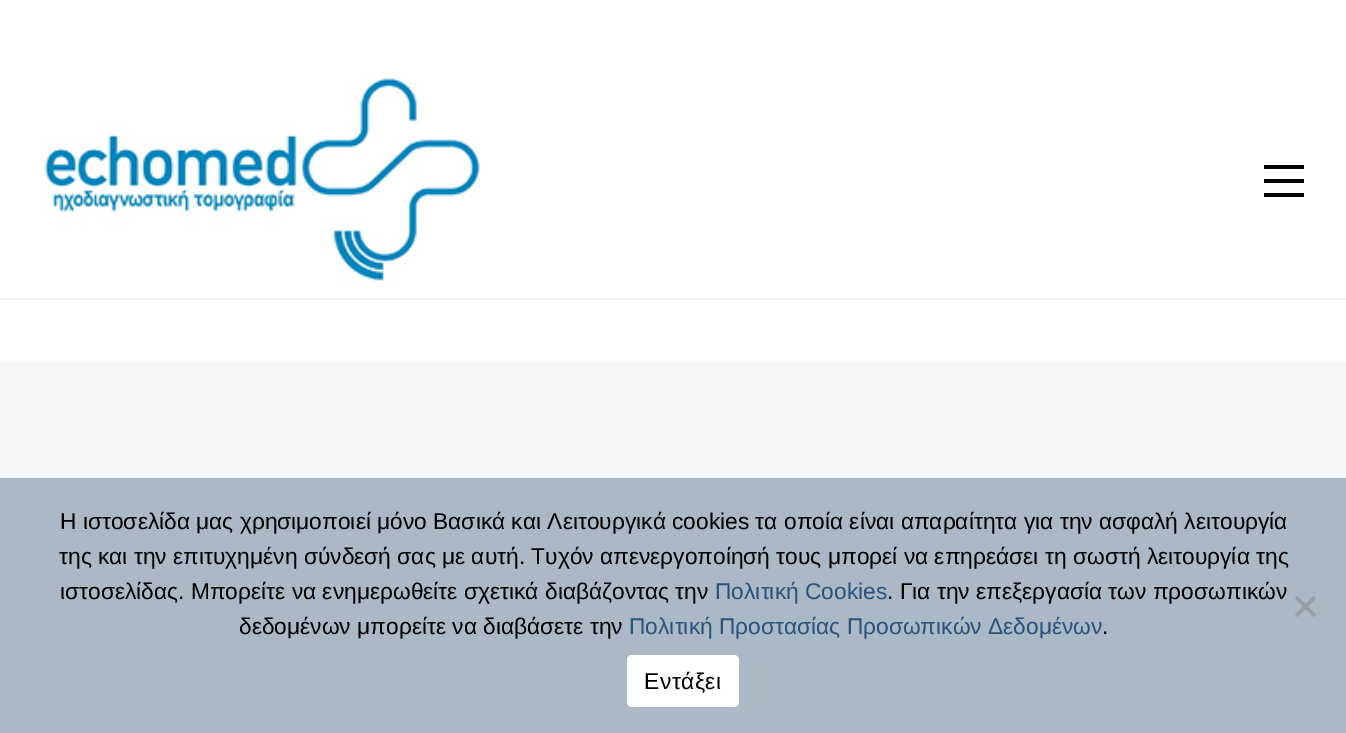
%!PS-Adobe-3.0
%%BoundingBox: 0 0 1346 733
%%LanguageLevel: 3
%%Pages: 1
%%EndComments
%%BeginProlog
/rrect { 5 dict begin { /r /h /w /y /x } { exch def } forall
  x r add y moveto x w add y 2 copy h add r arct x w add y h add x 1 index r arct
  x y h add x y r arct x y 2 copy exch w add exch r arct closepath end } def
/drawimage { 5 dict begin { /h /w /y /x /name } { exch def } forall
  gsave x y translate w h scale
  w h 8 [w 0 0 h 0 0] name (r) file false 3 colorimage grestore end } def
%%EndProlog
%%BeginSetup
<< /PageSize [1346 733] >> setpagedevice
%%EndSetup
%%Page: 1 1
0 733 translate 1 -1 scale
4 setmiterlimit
0.953 0.973 0.984 setrgbcolor
0 0 1346 733 rectfill
1 setgray
0 0 1346 361 rectfill
0.953 setgray
0 298 1346 2 rectfill
(images/1.raw) 45 78 435 203 drawimage
0 setgray
1264 165 40 4 rectfill
1264 179 40 4 rectfill
1264 193 40 4 rectfill
0.671 0.725 0.776 setrgbcolor
0 478 1346 255 rectfill
0.588 0.616 0.639 setrgbcolor
newpath 1313.5 596 moveto 1316 598.5 lineto 1297.5 617 lineto 1295 614.5 lineto closepath fill
newpath 1295 598.5 moveto 1297.5 596 lineto 1316 614.5 lineto 1313.5 617 lineto closepath fill
1 setgray
627 655 112 52 5 rrect fill
/LiberationSans-Regular [22.75 0 0 -22.75 0 0] selectfont
0 setgray
60 529 moveto (Η ιστοσελίδα μας χρησιμοποιεί μόνο Βασικά και Λειτουργικά cookies τα οποία είναι απαραίτητα για την ασφαλή λειτουργία) show
59 564 moveto (της και την επιτυχημένη σύνδεσή σας με αυτή. Τυχόν απενεργοποίησή τους μπορεί να επηρεάσει τη σωστή λειτουργία της) show
60 599 moveto (ιστοσελίδας. Μπορείτε να ενημερωθείτε σχετικά διαβάζοντας την) show
0.165 0.322 0.482 setrgbcolor
715 599 moveto (Πολιτική Cookies) show
0 setgray
887 599 moveto (. Για την επεξεργασία των προσωπικών) show
239 634 moveto (δεδομένων μπορείτε να διαβάσετε την) show
0.165 0.322 0.482 setrgbcolor
629 634 moveto (Πολιτική Προστασίας Προσωπικών Δεδομένων) show
0 setgray
1102 634 moveto (.) show
644 689 moveto 0.5 0 (Εντάξει) ashow
showpage
%%EOF
